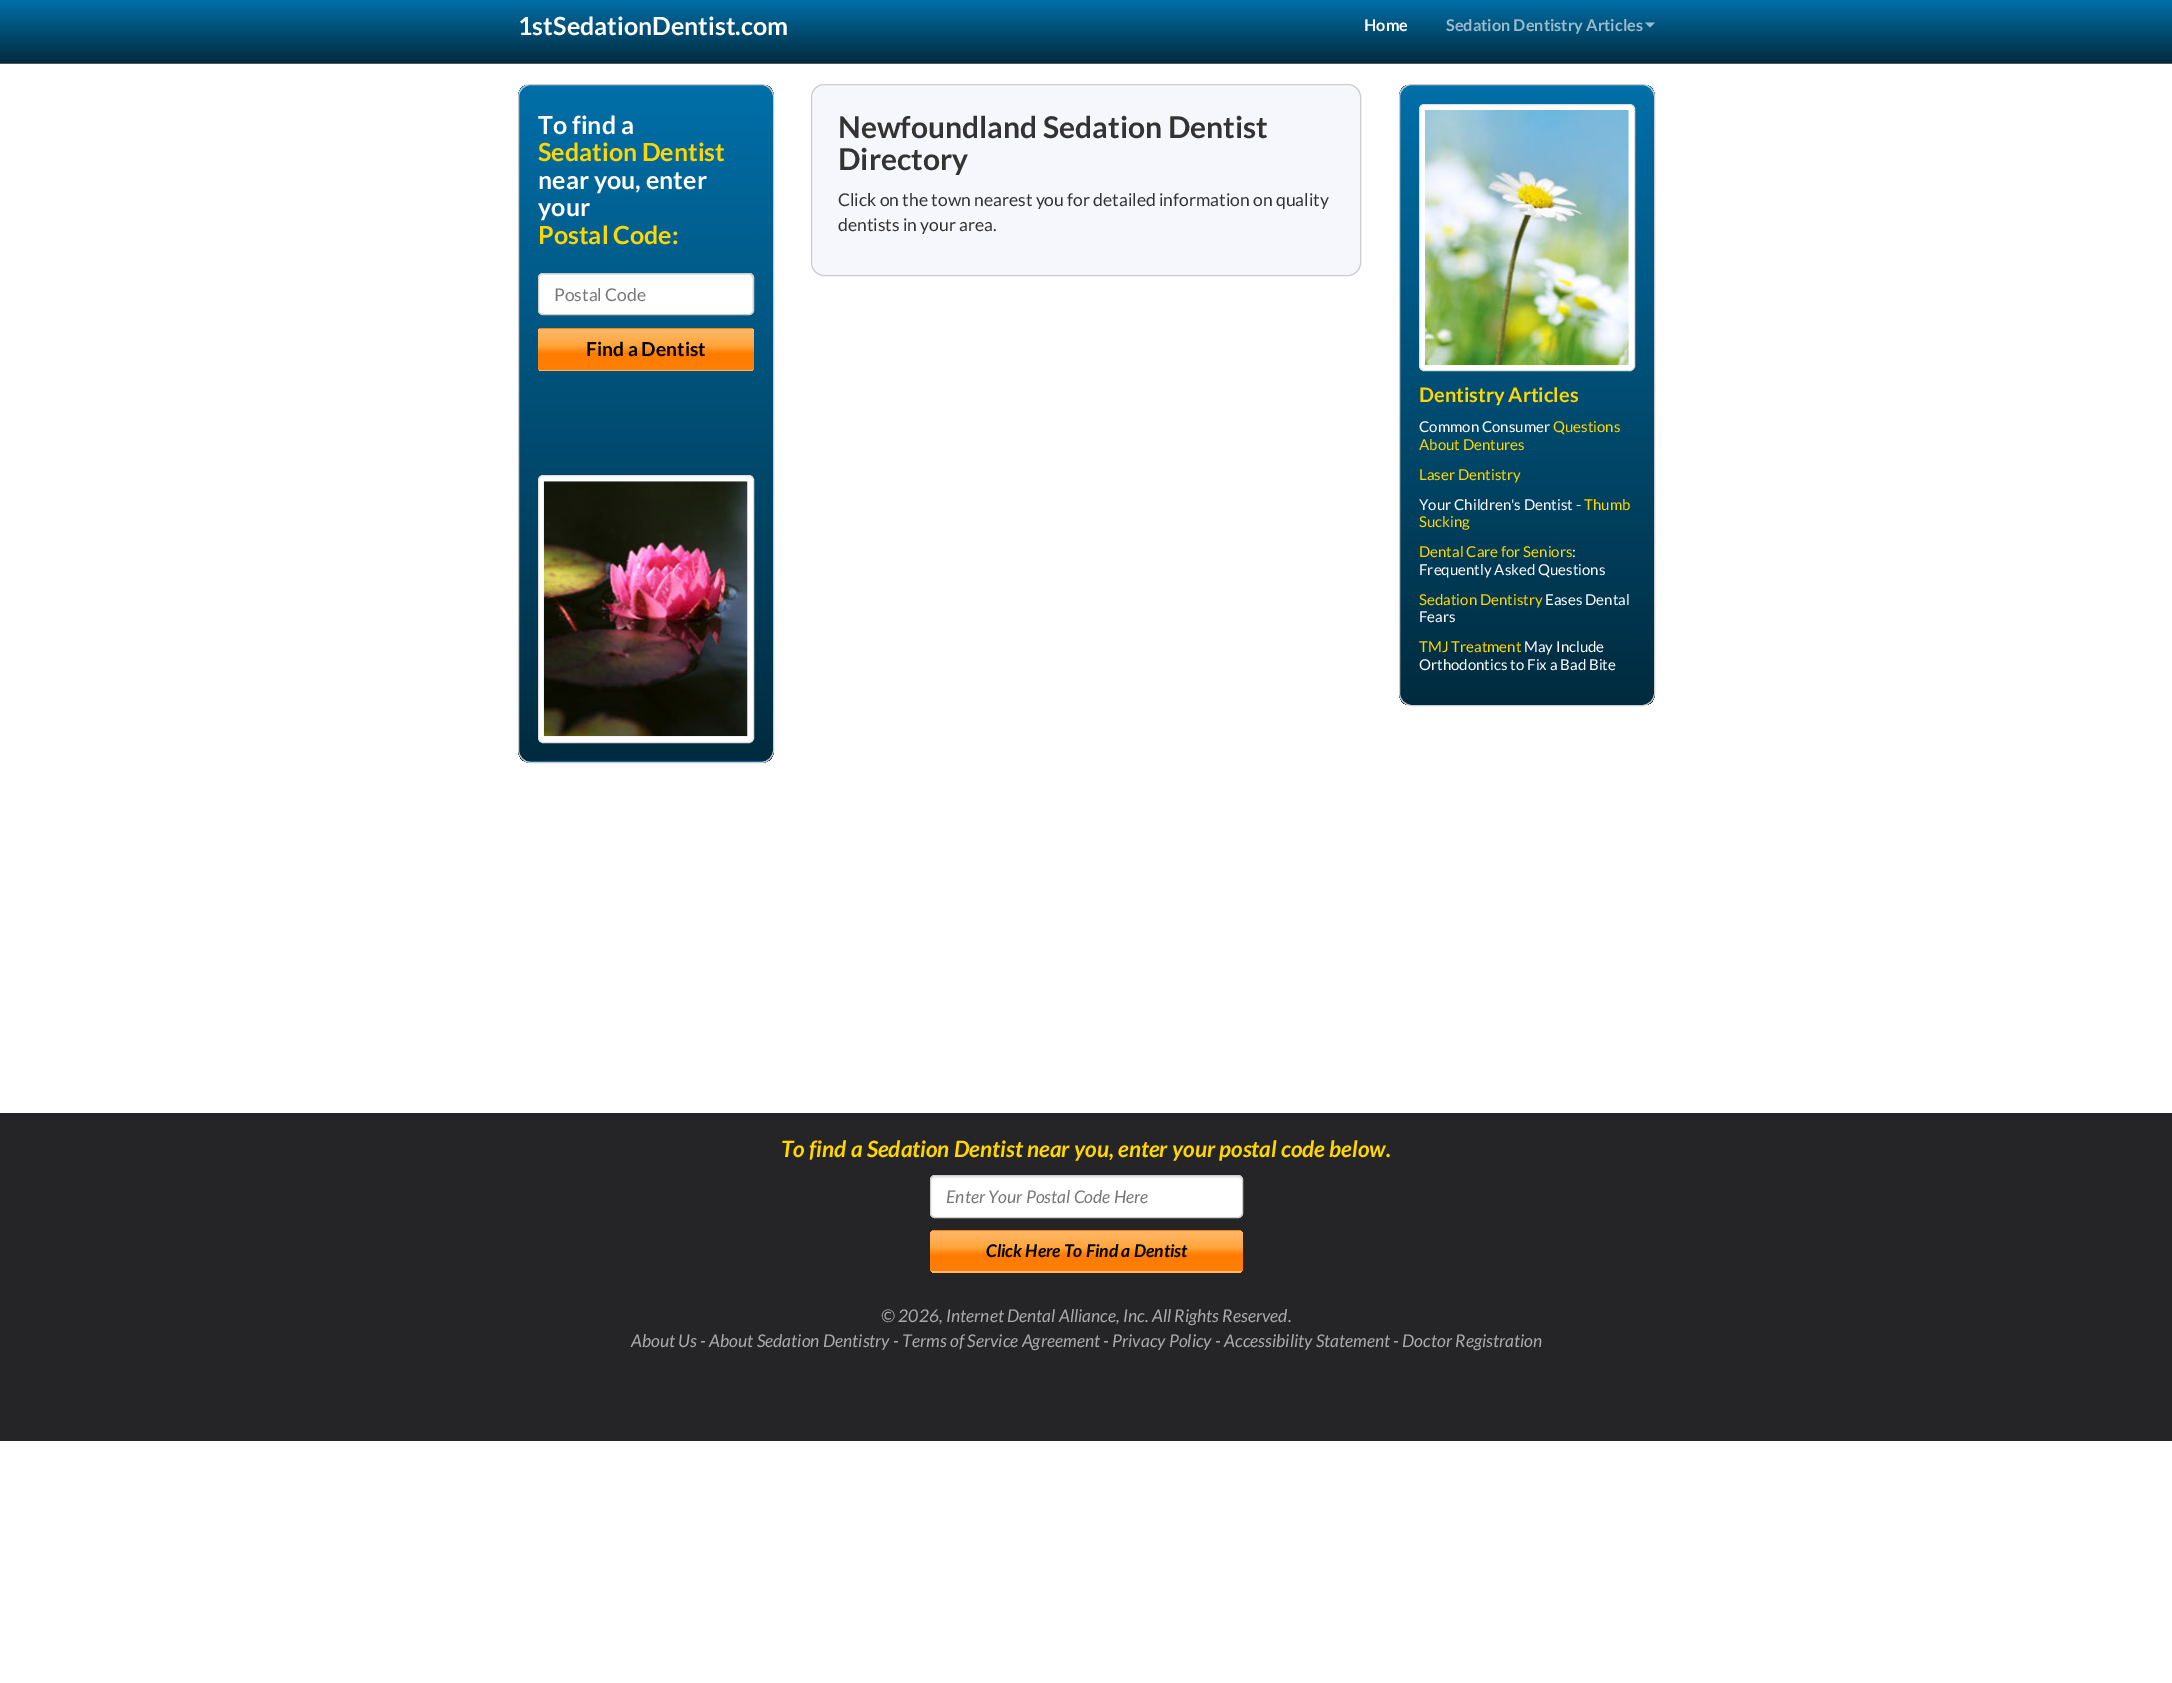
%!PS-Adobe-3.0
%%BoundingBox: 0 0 2172 1683
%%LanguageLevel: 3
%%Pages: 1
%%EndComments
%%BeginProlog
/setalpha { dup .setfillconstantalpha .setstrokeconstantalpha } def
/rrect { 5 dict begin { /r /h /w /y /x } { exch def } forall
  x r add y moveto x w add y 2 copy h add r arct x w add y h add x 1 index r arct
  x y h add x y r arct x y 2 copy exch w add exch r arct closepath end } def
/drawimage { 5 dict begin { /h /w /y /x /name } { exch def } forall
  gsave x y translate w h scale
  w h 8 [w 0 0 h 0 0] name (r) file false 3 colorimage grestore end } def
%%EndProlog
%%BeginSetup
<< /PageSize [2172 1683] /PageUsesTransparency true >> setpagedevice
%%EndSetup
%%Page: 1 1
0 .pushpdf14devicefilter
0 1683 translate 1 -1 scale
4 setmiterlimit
1 setgray
0 0 2172 1683 rectfill
gsave newpath 0 0 moveto 2172 0 lineto 2172 63 lineto 0 63 lineto closepath clip newpath
<< /ShadingType 2 /ColorSpace /DeviceRGB /Coords [1086 0 1086 63] /Extend [true true] /Function << /FunctionType 2 /Domain [0 1] /C0 [0 0.435 0.659] /C1 [0 0.169 0.243] /N 1 >> >> shfill grestore
0.345 setgray
0 63 2172 1 rectfill
0.6 setalpha
1 setgray
newpath 1645 22.5 moveto 1655 22.5 lineto 1650 27.5 lineto closepath fill
gsave
518 84 256 679 13 rrect clip newpath
1 setalpha
gsave newpath 518 85 moveto 774 85 lineto 774 761 lineto 518 761 lineto closepath clip newpath
<< /ShadingType 2 /ColorSpace /DeviceRGB /Coords [646 85 646 761] /Extend [true true] /Function << /FunctionType 2 /Domain [0 1] /C0 [0 0.435 0.659] /C1 [0 0.169 0.243] /N 1 >> >> shfill grestore
gsave newpath 518 761 moveto 774 761 lineto 774 763 lineto 518 763 lineto closepath clip newpath
<< /ShadingType 2 /ColorSpace /DeviceRGB /Coords [646 761 646 1438] /Extend [true true] /Function << /FunctionType 2 /Domain [0 1] /C0 [0 0.435 0.659] /C1 [0 0.169 0.243] /N 1 >> >> shfill grestore
grestore
1 setalpha
0.8 setgray
518.5 84.5 255 678 12.5 rrect stroke
1 setgray
538 273 216 42 5 rrect fill
0.925 setgray
newpath 542 275 moveto 749 275 lineto 754 275 752 288 752 290 curveto 752 313 lineto 752 312 753 311 753 310 curveto 753 278 lineto 753 276 751 274 749 274 curveto 543 274 lineto 541 274 539 276 539 278 curveto 539 279 lineto 539 277 540 275 542 275 curveto closepath fill
0.8 setgray
538.5 273.5 215 41 4.5 rrect stroke
gsave
538 328 216 43 4 rrect clip newpath
gsave newpath 538 328 moveto 754 328 lineto 754 329 lineto 538 329 lineto closepath clip newpath
<< /ShadingType 2 /ColorSpace /DeviceRGB /Coords [646 288 646 329] /Extend [true true] /Function << /FunctionType 3 /Domain [0 1] /Functions [<< /FunctionType 2 /Domain [0 1] /C0 [1 0.718 0.42] /C1 [1 0.655 0.239] /N 1 >> << /FunctionType 2 /Domain [0 1] /C0 [1 0.655 0.239] /C1 [1 0.486 0] /N 1 >> << /FunctionType 2 /Domain [0 1] /C0 [1 0.486 0] /C1 [1 0.498 0.016] /N 1 >>] /Bounds [0.4 0.6] /Encode [0 1 0 1 0 1] >> >> shfill grestore
gsave newpath 538 329 moveto 754 329 lineto 754 370 lineto 538 370 lineto closepath clip newpath
<< /ShadingType 2 /ColorSpace /DeviceRGB /Coords [646 329 646 370] /Extend [true true] /Function << /FunctionType 3 /Domain [0 1] /Functions [<< /FunctionType 2 /Domain [0 1] /C0 [1 0.718 0.42] /C1 [1 0.655 0.239] /N 1 >> << /FunctionType 2 /Domain [0 1] /C0 [1 0.655 0.239] /C1 [1 0.486 0] /N 1 >> << /FunctionType 2 /Domain [0 1] /C0 [1 0.486 0] /C1 [1 0.498 0.016] /N 1 >>] /Bounds [0.4 0.6] /Encode [0 1 0 1 0 1] >> >> shfill grestore
gsave newpath 538 370 moveto 754 370 lineto 754 371 lineto 538 371 lineto closepath clip newpath
<< /ShadingType 2 /ColorSpace /DeviceRGB /Coords [646 370 646 411] /Extend [true true] /Function << /FunctionType 3 /Domain [0 1] /Functions [<< /FunctionType 2 /Domain [0 1] /C0 [1 0.718 0.42] /C1 [1 0.655 0.239] /N 1 >> << /FunctionType 2 /Domain [0 1] /C0 [1 0.655 0.239] /C1 [1 0.486 0] /N 1 >> << /FunctionType 2 /Domain [0 1] /C0 [1 0.486 0] /C1 [1 0.498 0.016] /N 1 >>] /Bounds [0.4 0.6] /Encode [0 1 0 1 0 1] >> >> shfill grestore
grestore
1 setgray
538.5 475.5 215 267 4.5 rrect gsave fill grestore
0.867 setgray
stroke
(images/1.raw) 543 481 205 256 drawimage
0.965 0.965 0.992 setrgbcolor
811.5 84.5 549 191 12.5 rrect gsave fill grestore
0.8 setgray
stroke
gsave
1399 84 256 622 13 rrect clip newpath
gsave newpath 1399 85 moveto 1655 85 lineto 1655 705 lineto 1399 705 lineto closepath clip newpath
<< /ShadingType 2 /ColorSpace /DeviceRGB /Coords [1527 85 1527 705] /Extend [true true] /Function << /FunctionType 2 /Domain [0 1] /C0 [0 0.435 0.659] /C1 [0 0.169 0.243] /N 1 >> >> shfill grestore
grestore
1399.5 84.5 255 621 12.5 rrect stroke
1 setgray
1419.5 104.5 215 266 4.5 rrect gsave fill grestore
0.867 setgray
stroke
(images/2.raw) 1425 110 204 255 drawimage
0.145 0.145 0.157 setrgbcolor
0 1113 2172 328 rectfill
1 setgray
930 1175 313 43 5 rrect fill
0.925 setgray
newpath 935 1178 moveto 1238 1178 lineto 1240 1178 1241 1179 1241 1181 curveto 1241 1178 1240 1176 1237 1176 curveto 935 1176 lineto 932 1177 lineto 931 1178 931 1180 931 1181 curveto 931 1179 933 1178 935 1178 curveto closepath fill
0.8 setgray
930.5 1175.5 312 42 4.5 rrect stroke
gsave
930 1230 313 43 5 rrect clip newpath
gsave newpath 930 1230 moveto 1243 1230 lineto 1243 1231 lineto 930 1231 lineto closepath clip newpath
<< /ShadingType 2 /ColorSpace /DeviceRGB /Coords [1086 1191 1086 1231] /Extend [true true] /Function << /FunctionType 3 /Domain [0 1] /Functions [<< /FunctionType 2 /Domain [0 1] /C0 [1 0.718 0.42] /C1 [1 0.655 0.239] /N 1 >> << /FunctionType 2 /Domain [0 1] /C0 [1 0.655 0.239] /C1 [1 0.486 0] /N 1 >> << /FunctionType 2 /Domain [0 1] /C0 [1 0.486 0] /C1 [1 0.498 0.016] /N 1 >>] /Bounds [0.4 0.6] /Encode [0 1 0 1 0 1] >> >> shfill grestore
gsave newpath 930 1231 moveto 1243 1231 lineto 1243 1271 lineto 930 1271 lineto closepath clip newpath
<< /ShadingType 2 /ColorSpace /DeviceRGB /Coords [1086 1231 1086 1271] /Extend [true true] /Function << /FunctionType 3 /Domain [0 1] /Functions [<< /FunctionType 2 /Domain [0 1] /C0 [1 0.718 0.42] /C1 [1 0.655 0.239] /N 1 >> << /FunctionType 2 /Domain [0 1] /C0 [1 0.655 0.239] /C1 [1 0.486 0] /N 1 >> << /FunctionType 2 /Domain [0 1] /C0 [1 0.486 0] /C1 [1 0.498 0.016] /N 1 >>] /Bounds [0.4 0.6] /Encode [0 1 0 1 0 1] >> >> shfill grestore
gsave newpath 930 1271 moveto 1243 1271 lineto 1243 1273 lineto 930 1273 lineto closepath clip newpath
<< /ShadingType 2 /ColorSpace /DeviceRGB /Coords [1086 1271 1086 1311] /Extend [true true] /Function << /FunctionType 3 /Domain [0 1] /Functions [<< /FunctionType 2 /Domain [0 1] /C0 [1 0.718 0.42] /C1 [1 0.655 0.239] /N 1 >> << /FunctionType 2 /Domain [0 1] /C0 [1 0.655 0.239] /C1 [1 0.486 0] /N 1 >> << /FunctionType 2 /Domain [0 1] /C0 [1 0.486 0] /C1 [1 0.498 0.016] /N 1 >>] /Bounds [0.4 0.6] /Encode [0 1 0 1 0 1] >> >> shfill grestore
grestore
/Lato-Bold [25 0 0 -25 0 0] selectfont
1 setgray
518 35 moveto (1stSedationDentist.com) show
/Lato-Bold [16.25 0 0 -16.25 0 0] selectfont
1364 31 moveto (Home) show
0.6 0.729 0.796 setrgbcolor
1446 31 moveto (Sedation Dentistry Articles) show
/Lato-Bold [25 0 0 -25 0 0] selectfont
1 setgray
538 134 moveto (To find a) show
1 0.843 0 setrgbcolor
538 161 moveto (Sedation Dentist) show
1 setgray
538 189 moveto (near you, enter) show
538 216 moveto (your) show
1 0.843 0 setrgbcolor
538 244 moveto (Postal Code:) show
/Lato-Regular [17.5 0 0 -17.5 0 0] selectfont
0.467 setgray
554 301 moveto (Postal Code) show
/Lato-Bold [19.25 0 0 -19.25 0 0] selectfont
0 setgray
586 356 moveto (Find a Dentist) show
/Lato-Bold [30 0 0 -30 0 0] selectfont
0.2 setgray
838 138 moveto (Newfoundland Sedation Dentist) show
838 170 moveto (Directory) show
/Lato-Regular [17.5 0 0 -17.5 0 0] selectfont
838 206 moveto (Click on the town nearest you for detailed information on quality) show
838 231 moveto (dentists in your area.) show
/Lato-Bold [20 0 0 -20 0 0] selectfont
1 0.843 0 setrgbcolor
1419 402 moveto (Dentistry Articles) show
/Lato-Regular [15 0 0 -15 0 0] selectfont
1 setgray
1419 432 moveto (Common Consumer) show
1 0.843 0 setrgbcolor
1553 432 moveto (Questions) show
1419 450 moveto (About Dentures) show
1419 480 moveto (Laser Dentistry) show
1 setgray
1419 510 moveto (Your Children's Dentist -) show
1 0.843 0 setrgbcolor
1584 510 moveto (Thumb) show
1419 527 moveto (Sucking) show
1419 557 moveto (Dental Care for Seniors) show
1 setgray
1572 557 moveto (:) show
1419 575 moveto (Frequently Asked Questions) show
1 0.843 0 setrgbcolor
1419 605 moveto (Sedation Dentistry) show
1 setgray
1545 605 moveto (Eases Dental) show
1419 622 moveto (Fears) show
1 0.843 0 setrgbcolor
1419 652 moveto (TMJ Treatment) show
1 setgray
1524 652 moveto (May Include) show
1419 670 moveto (Orthodontics to Fix a Bad Bite) show
/Lato-BoldItalic [22.5 0 0 -22.5 0 0] selectfont
1 0.843 0 setrgbcolor
781 1157 moveto (To find a Sedation Dentist near you, enter your postal code below.) show
/Lato-Italic [17.5 0 0 -17.5 0 0] selectfont
0.467 setgray
946 1203 moveto (Enter Your Postal Code Here) show
/Lato-BoldItalic [17.5 0 0 -17.5 0 0] selectfont
0 setgray
986 1257 moveto (Click Here To Find a Dentist) show
/Lato-Italic [17.5 0 0 -17.5 0 0] selectfont
0.667 setgray
881 1322 moveto (© 2026, Internet Dental Alliance, Inc. All Rights Reserved.) show
631 1347 moveto (About Us - About Sedation Dentistry - Terms of Service Agreement - Privacy Policy - Accessibility Statement - Doctor Registration) show
.poppdf14devicefilter showpage
%%EOF
